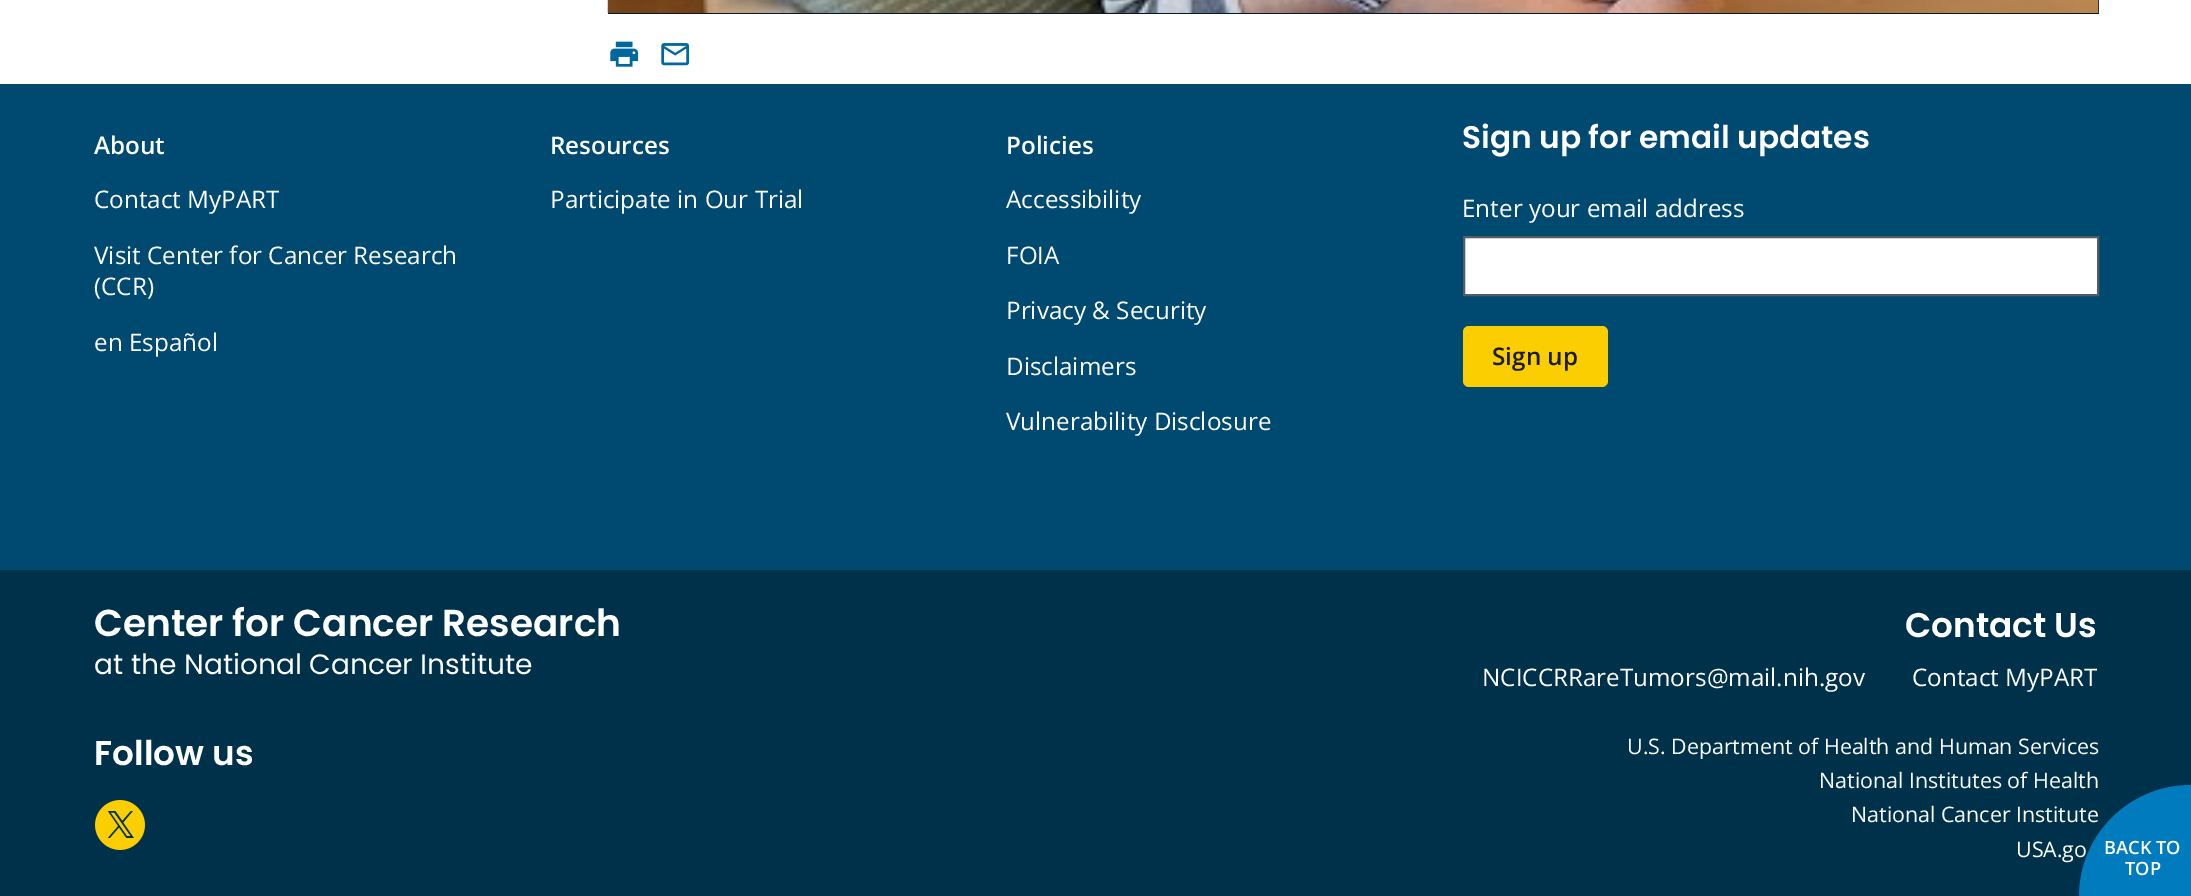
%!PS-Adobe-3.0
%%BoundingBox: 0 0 2191 896
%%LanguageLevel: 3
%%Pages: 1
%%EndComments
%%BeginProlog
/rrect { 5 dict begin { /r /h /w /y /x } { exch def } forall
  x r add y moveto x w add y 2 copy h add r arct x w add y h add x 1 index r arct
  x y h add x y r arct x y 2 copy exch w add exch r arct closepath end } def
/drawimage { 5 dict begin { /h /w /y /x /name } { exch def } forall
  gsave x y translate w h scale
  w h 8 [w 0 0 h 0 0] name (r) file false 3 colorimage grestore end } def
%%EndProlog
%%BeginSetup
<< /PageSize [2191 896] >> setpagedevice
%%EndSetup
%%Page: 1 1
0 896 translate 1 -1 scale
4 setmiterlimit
1 setgray
0 0 2191 896 rectfill
0.024 0.086 0.176 setrgbcolor
608 0 1491 14 rectfill
(images/1.raw) 607 0 1492 13 drawimage
(images/2.raw) 610 41 29 26 drawimage
(images/3.raw) 661 43 29 23 drawimage
0 0.286 0.443 setrgbcolor
0 84 2191 486 rectfill
1 setgray
newpath 1464 237 moveto 2098 237 lineto 2098 295 lineto 1464 295 lineto closepath gsave fill grestore
0.337 0.361 0.396 setrgbcolor
2 setlinewidth
stroke
0.98 0.808 0 setrgbcolor
1463 326 145 61 6 rrect fill
0 0.192 0.294 setrgbcolor
0 570 2191 326 rectfill
(images/4.raw) 95 800 50 50 drawimage
/OpenSans-SemiBold [24.25 0 0 -24.25 0 0] selectfont
1 setgray
94 154 moveto (About) show
/OpenSans-Regular [24.25 0 0 -24.25 0 0] selectfont
94 208 moveto (Contact MyPART) show
94 264 moveto (Visit Center for Cancer Research) show
94 295 moveto (\(CCR\)) show
94 351 moveto (en Español) show
/OpenSans-SemiBold [24.25 0 0 -24.25 0 0] selectfont
550 154 moveto (Resources) show
/OpenSans-Regular [24.25 0 0 -24.25 0 0] selectfont
550 208 moveto (Participate in Our Trial) show
/OpenSans-SemiBold [24.25 0 0 -24.25 0 0] selectfont
1006 154 moveto (Policies) show
/OpenSans-Regular [24.25 0 0 -24.25 0 0] selectfont
1006 208 moveto (Accessibility) show
1006 264 moveto (FOIA) show
1006 319 moveto (Privacy & Security) show
1006 375 moveto (Disclaimers) show
1006 430 moveto (Vulnerability Disclosure) show
/Poppins-SemiBold [31.25 0 0 -31.25 0 0] selectfont
1462 148 moveto (Sign up for email updates) show
/OpenSans-Regular [24.25 0 0 -24.25 0 0] selectfont
1462 217 moveto (Enter your email address) show
/OpenSans-SemiBold [24.25 0 0 -24.25 0 0] selectfont
0.106 setgray
1492 365 moveto (Sign up) show
/Poppins-SemiBold [37.5 0 0 -37.5 0 0] selectfont
1 setgray
94 636 moveto (Center for Cancer Research) show
/Poppins-Regular [28.1 0 0 -28.1 0 0] selectfont
94 674 moveto (at the National Cancer Institute) show
/Poppins-SemiBold [34.25 0 0 -34.25 0 0] selectfont
1905 637 moveto (Contact Us) show
/OpenSans-Regular [24.25 0 0 -24.25 0 0] selectfont
1482 686 moveto (NCICCRRareTumors@mail.nih.gov) show
1912 686 moveto (Contact MyPART) show
/Poppins-SemiBold [34.25 0 0 -34.25 0 0] selectfont
94 765 moveto (Follow us) show
/OpenSans-Regular [21.4 0 0 -21.4 0 0] selectfont
1627 754 moveto (U.S. Department of Health and Human Services) show
1819 788 moveto (National Institutes of Health) show
1851 822 moveto (National Cancer Institute) show
2016 857 moveto (USA.go) show
0 0.482 0.741 setrgbcolor
newpath 2191 785 moveto 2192 785 lineto 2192 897 lineto 2079 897 lineto 2079 835 2129 785 2191 785 curveto closepath fill
/OpenSans-SemiBold [18.25 0 0 -18.25 0 0] selectfont
1 setgray
2104 854 moveto (BACK TO) show
2125 875 moveto (TOP) show
showpage
%%EOF
